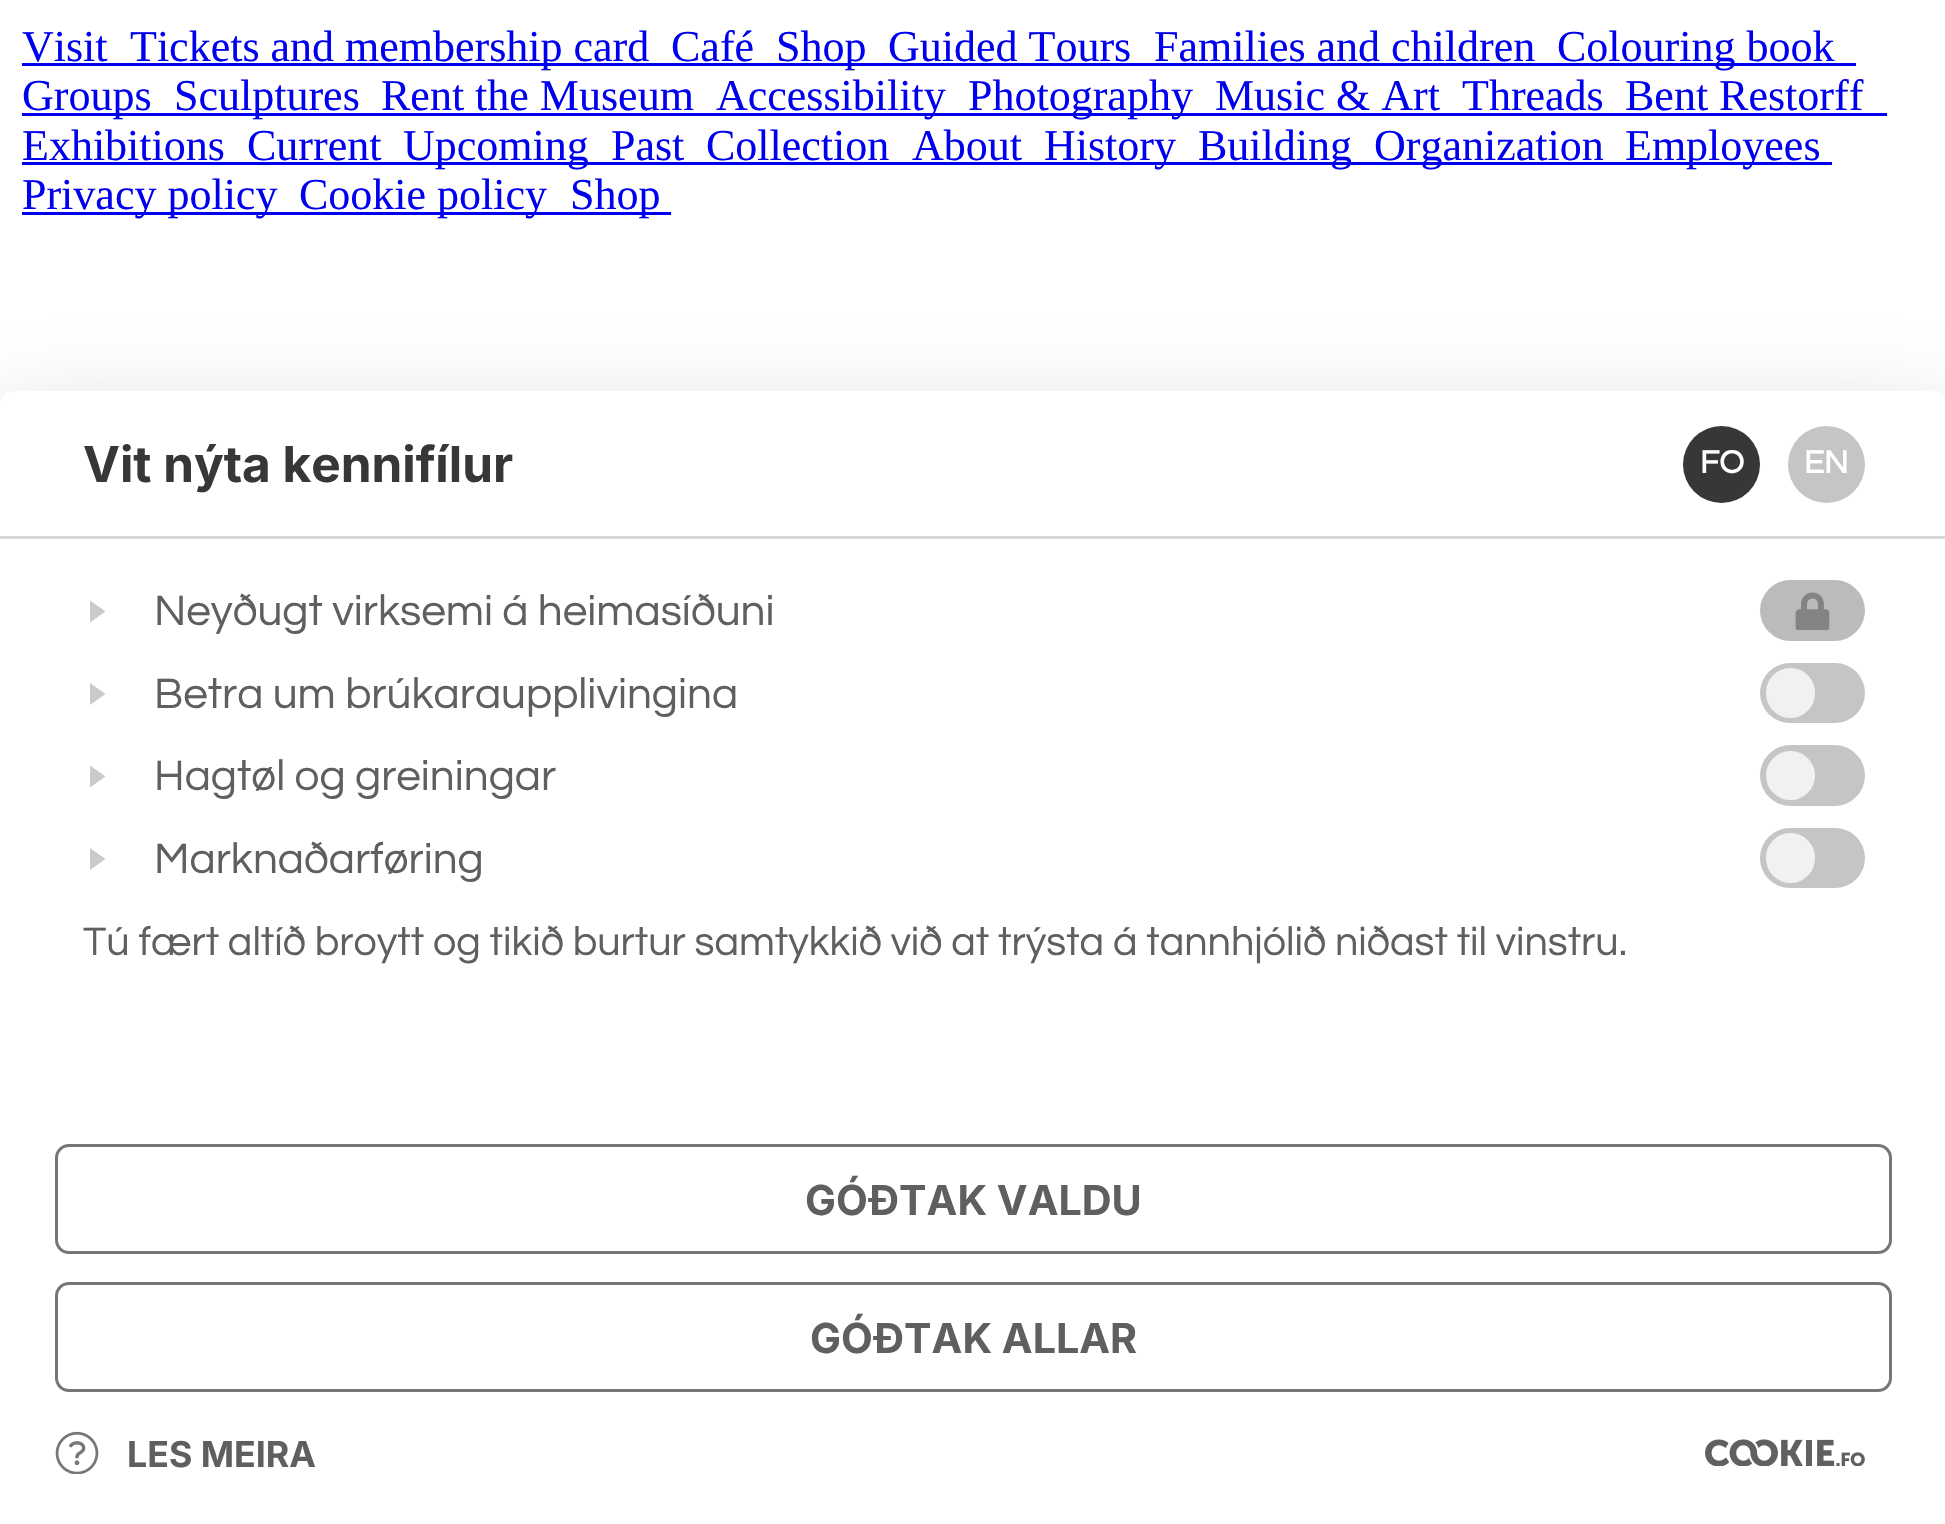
void draw(SkCanvas* canvas) {
    SkPaint paint;
    paint.setAntiAlias(true);
    canvas->clear(0xFFFFFFFF);
    SkFont font1(fontMgr->matchFamilyStyle("Liberation Serif", SkFontStyle::Normal()), 44);
    font1.setSubpixel(true);
    paint.setColor(0xFF0000EE);
    canvas->drawString("Visit", 22, 61, font1, paint);
    canvas->drawRect(SkRect::MakeXYWH(22, 63, 1834, 3), paint);
    canvas->drawString("Tickets and membership card", 130, 61, font1, paint);
    canvas->drawString("Café", 671, 61, font1, paint);
    canvas->drawString("Shop", 776, 61, font1, paint);
    canvas->drawString("Guided Tours", 888, 61, font1, paint);
    canvas->drawString("Families and children", 1154, 61, font1, paint);
    canvas->drawString("Colouring book", 1557, 61, font1, paint);
    canvas->drawRect(SkRect::MakeXYWH(22, 113, 1865, 3), paint);
    canvas->drawString("Groups", 22, 110, font1, paint);
    canvas->drawString("Sculptures", 174, 110, font1, paint);
    canvas->drawString("Rent the Museum", 381, 110, font1, paint);
    canvas->drawString("Accessibility", 716, 110, font1, paint);
    canvas->drawString("Photography", 968, 110, font1, paint);
    canvas->drawString("Music & Art", 1215, 110, font1, paint);
    canvas->drawString("Threads", 1462, 110, font1, paint);
    canvas->drawString("Bent Restorff", 1625, 110, font1, paint);
    canvas->drawString("Exhibitions", 22, 160, font1, paint);
    canvas->drawRect(SkRect::MakeXYWH(22, 162, 1810, 3), paint);
    canvas->drawString("Current", 247, 160, font1, paint);
    canvas->drawString("Upcoming", 403, 160, font1, paint);
    canvas->drawString("Past", 611, 160, font1, paint);
    canvas->drawString("Collection", 706, 160, font1, paint);
    canvas->drawString("About", 912, 160, font1, paint);
    canvas->drawString("History", 1044, 160, font1, paint);
    canvas->drawString("Building", 1198, 160, font1, paint);
    canvas->drawString("Organization", 1374, 160, font1, paint);
    canvas->drawString("Employees", 1625, 160, font1, paint);
    canvas->drawRect(SkRect::MakeXYWH(22, 212, 649, 3), paint);
    canvas->drawString("Privacy policy", 22, 209, font1, paint);
    canvas->drawString("Cookie policy", 299, 209, font1, paint);
    canvas->drawString("Shop", 570, 209, font1, paint);
    paint.setColor(0x4D010101);
    paint.setMaskFilter(SkMaskFilter::MakeBlur(kNormal_SkBlurStyle, 52));
    canvas->drawRoundRect(SkRect::MakeXYWH(0, 443, 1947, 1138), 14, 14, paint);
    paint.setMaskFilter(nullptr);
    paint.setColor(0xFFFFFFFF);
    canvas->drawPath(SkPathBuilder().moveTo(14, 391).lineTo(1933, 391).cubicTo(1940.5f, 391, 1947, 397.5f, 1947, 405).lineTo(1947, 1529).lineTo(0, 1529).lineTo(0, 405).cubicTo(0, 397.5f, 6.5f, 391, 14, 391).close().detach(), paint);
    paint.setColor(0xFFD9D9D9);
    canvas->drawRect(SkRect::MakeXYWH(0, 536, 1945, 3), paint);
    SkFont font2(fontMgr->matchFamilyStyle("Inter", SkFontStyle::Bold()), 49.5f);
    font2.setSubpixel(true);
    paint.setColor(0xFF373737);
    canvas->drawString("Vit nýta kennifílur", 83, 482, font2, paint);
    canvas->drawCircle(1721.5f, 464.5f, 38.5f, paint);
    SkFont font3(fontMgr->matchFamilyStyle("Questrial", SkFontStyle::Bold()), 33);
    font3.setSubpixel(true);
    paint.setColor(0xFFFFFFFF);
    canvas->drawString("FO", 1700, 473, font3, paint);
    paint.setColor(0xFFC6C5C5);
    canvas->drawCircle(1826.5f, 464.5f, 38.5f, paint);
    paint.setColor(0xFFFFFFFF);
    canvas->drawString("EN", 1804, 473, font3, paint);
    paint.setColor(0xFFCACACA);
    canvas->drawPath(SkPathBuilder().moveTo(90, 600.5f).lineTo(105.5f, 611.5f).lineTo(90, 622.5f).close().detach(), paint);
    SkFont font4(fontMgr->matchFamilyStyle("Questrial", SkFontStyle::Normal()), 44);
    font4.setSubpixel(true);
    paint.setColor(0xFF5F5F5F);
    canvas->drawString("Neyðugt virksemi á heimasíðuni", 154, 625, font4, paint);
    paint.setColor(0xFFBBBBBB);
    canvas->drawRoundRect(SkRect::MakeXYWH(1760, 580, 105, 61), 30.5f, 30.5f, paint);
    canvas->drawImageRect(SkImages::DeferredFromEncodedData(SkData::MakeFromFileName("img1.png")), SkRect::MakeXYWH(1795, 592, 35, 38), SkSamplingOptions());
    paint.setColor(0xFFCACACA);
    canvas->drawPath(SkPathBuilder().moveTo(90, 683).lineTo(105.5f, 694).lineTo(90, 705).close().detach(), paint);
    paint.setColor(0xFF5F5F5F);
    canvas->drawString("Betra um brúkaraupplivingina", 154, 708, font4, paint);
    paint.setColor(0xFFC6C5C5);
    canvas->drawRoundRect(SkRect::MakeXYWH(1760, 663, 105, 60), 30, 30, paint);
    paint.setColor(0xFFF1F1F1);
    canvas->drawRoundRect(SkRect::MakeXYWH(1766, 668, 49, 50), 24.5f, 24.5f, paint);
    paint.setColor(0xFFCACACA);
    canvas->drawPath(SkPathBuilder().moveTo(90, 765.5f).lineTo(105.5f, 776.5f).lineTo(90, 787.5f).close().detach(), paint);
    paint.setColor(0xFF5F5F5F);
    canvas->drawString("Hagtøl og greiningar", 154, 790, font4, paint);
    paint.setColor(0xFFC6C5C5);
    canvas->drawRoundRect(SkRect::MakeXYWH(1760, 745, 105, 61), 30.5f, 30.5f, paint);
    paint.setColor(0xFFF1F1F1);
    canvas->drawCircle(1790.5f, 775.5f, 24.5f, paint);
    paint.setColor(0xFFCACACA);
    canvas->drawPath(SkPathBuilder().moveTo(90, 848).lineTo(105.5f, 859).lineTo(90, 870).close().detach(), paint);
    paint.setColor(0xFF5F5F5F);
    canvas->drawString("Marknaðarføring", 154, 873, font4, paint);
    paint.setColor(0xFFC6C5C5);
    canvas->drawRoundRect(SkRect::MakeXYWH(1760, 828, 105, 60), 30, 30, paint);
    paint.setColor(0xFFF1F1F1);
    canvas->drawRoundRect(SkRect::MakeXYWH(1766, 833, 49, 50), 24.5f, 24.5f, paint);
    SkFont font5(fontMgr->matchFamilyStyle("Questrial", SkFontStyle::Normal()), 41.25f);
    font5.setSubpixel(true);
    paint.setColor(0xFF5F5F5F);
    canvas->drawString("Tú fært altíð broytt og tikið burtur samtykkið við at trýsta á tannhjólið niðast til vinstru.", 83, 955, font5, paint);
    paint.setStyle(SkPaint::kStroke_Style);
    paint.setStrokeWidth(3);
    paint.setColor(0xFF767676);
    canvas->drawRoundRect(SkRect::MakeXYWH(56.5f, 1145.5f, 1834, 107), 12.5f, 12.5f, paint);
    SkFont font6(fontMgr->matchFamilyStyle("Inter", SkFontStyle::Bold()), 41.25f);
    font6.setSubpixel(true);
    paint.setStyle(SkPaint::kFill_Style);
    paint.setColor(0xFF5F5F5F);
    canvas->drawString("GÓÐTAK VALDU", 805, 1215, font6, paint);
    paint.setStyle(SkPaint::kStroke_Style);
    paint.setColor(0xFF767676);
    canvas->drawRoundRect(SkRect::MakeXYWH(56.5f, 1283.5f, 1834, 107), 12.5f, 12.5f, paint);
    paint.setStyle(SkPaint::kFill_Style);
    paint.setColor(0xFF5F5F5F);
    canvas->drawString("GÓÐTAK ALLAR", 810, 1353, font6, paint);
    canvas->drawImageRect(SkImages::DeferredFromEncodedData(SkData::MakeFromFileName("img2.png")), SkRect::MakeXYWH(55, 1431, 44, 43), SkSamplingOptions());
    SkFont font7(fontMgr->matchFamilyStyle("Inter", SkFontStyle::Bold()), 35.75f);
    font7.setSubpixel(true);
    canvas->drawString("LES MEIRA", 127, 1467, font7, paint);
    canvas->drawImageRect(SkImages::DeferredFromEncodedData(SkData::MakeFromFileName("img3.png")), SkRect::MakeXYWH(1705, 1439, 160, 27), SkSamplingOptions());
}
